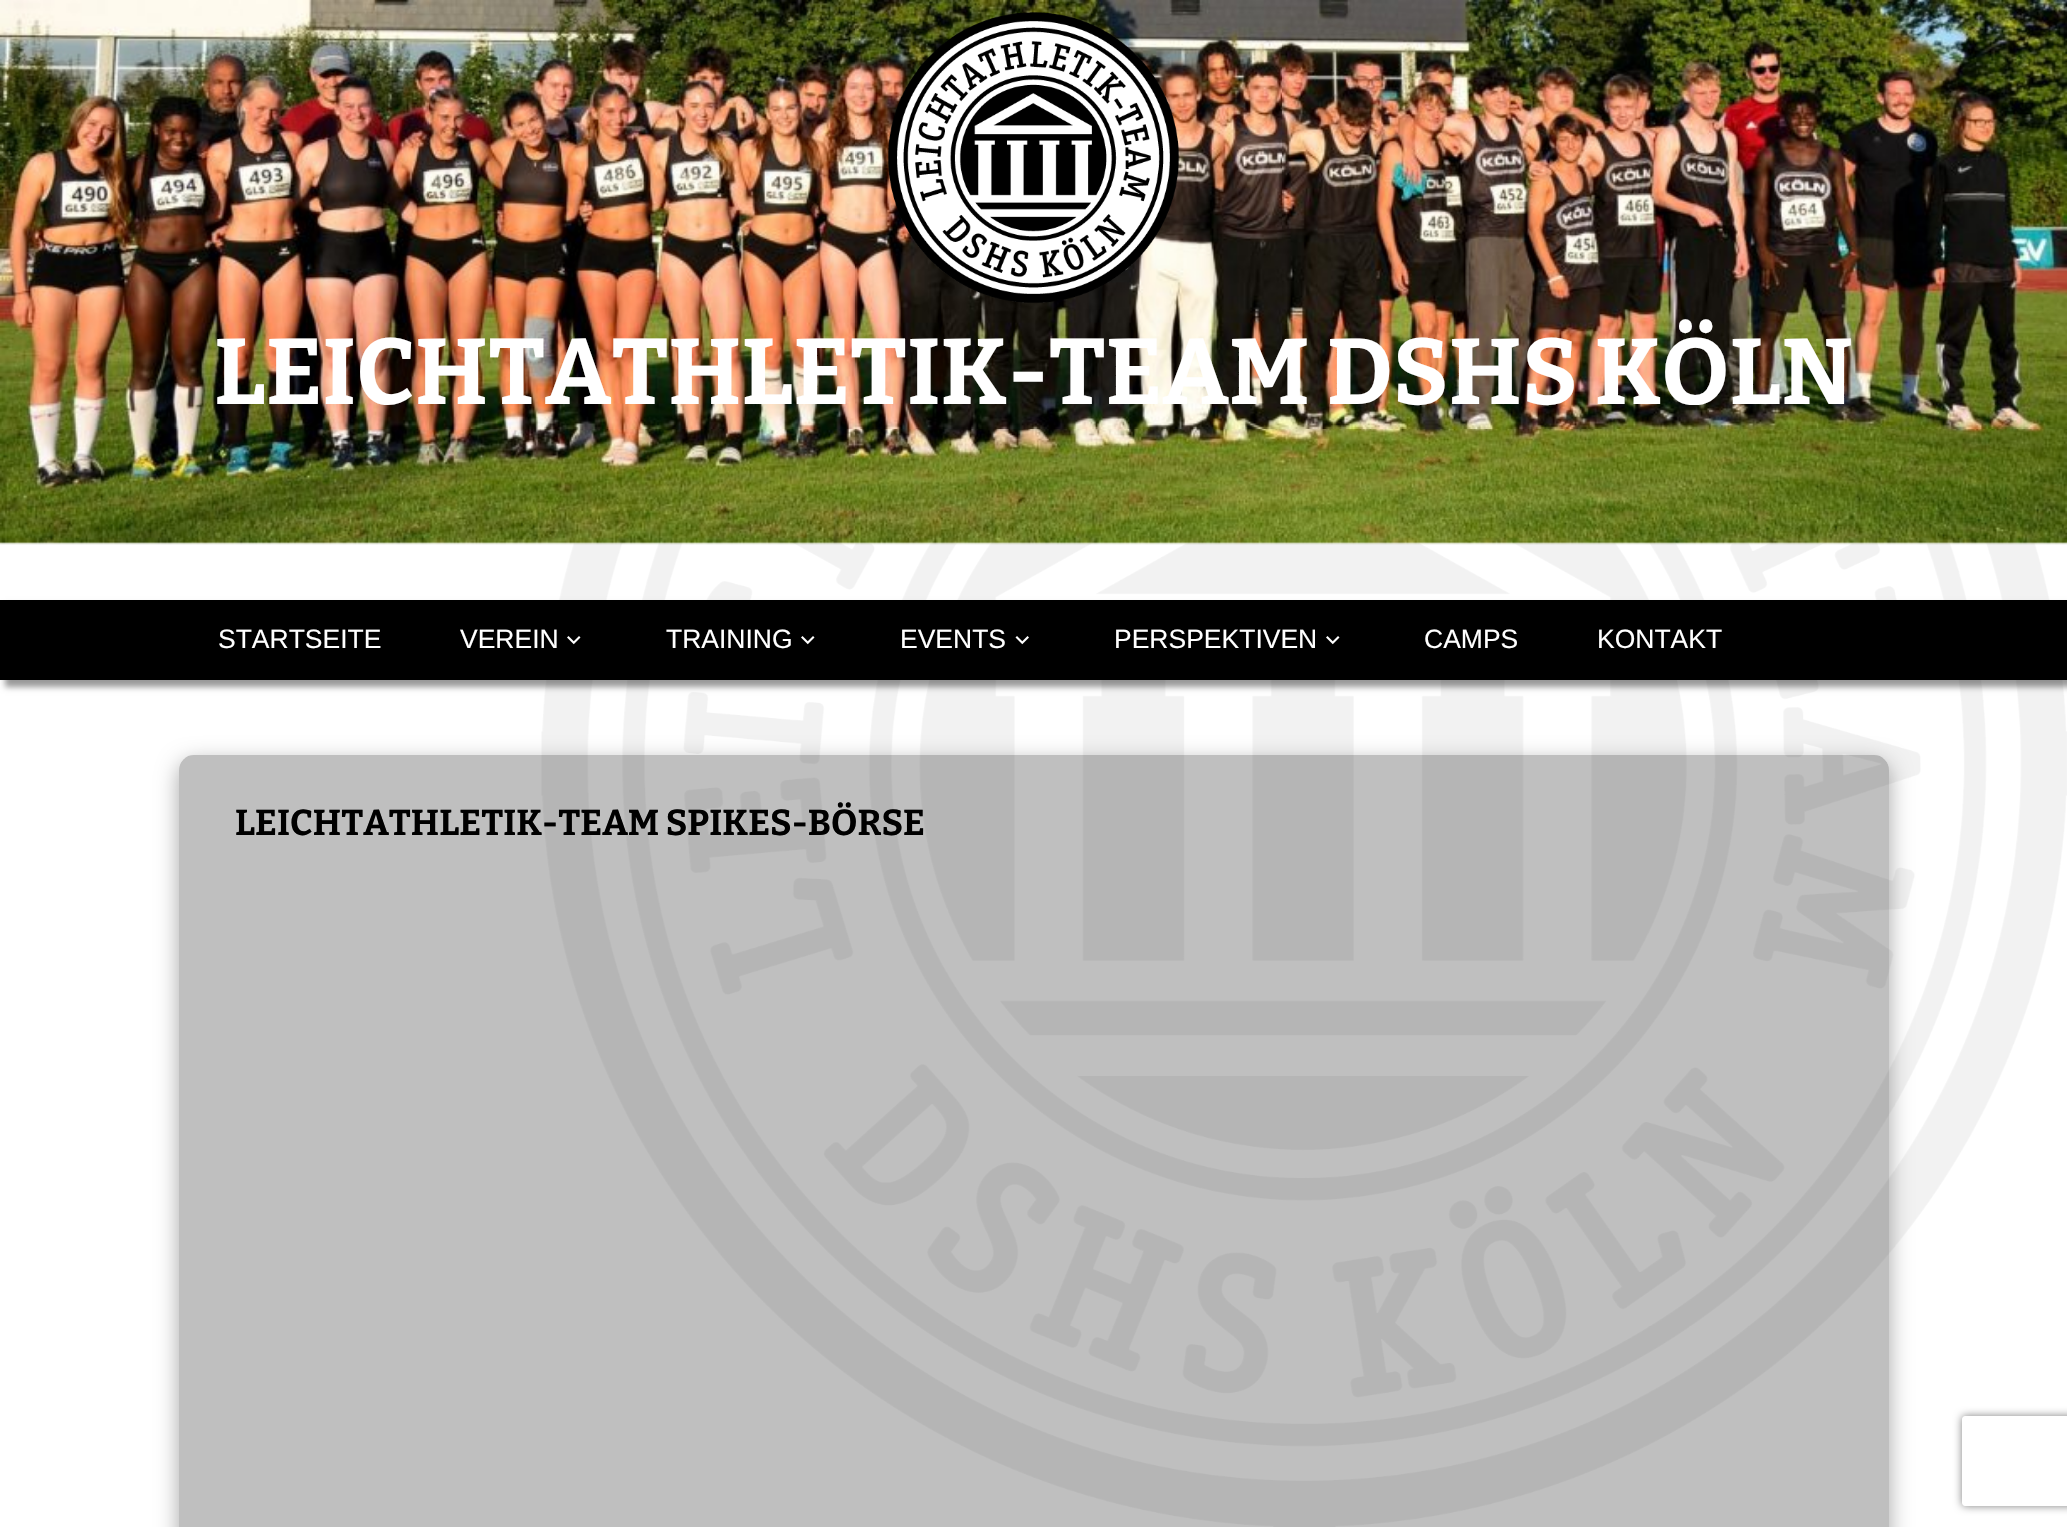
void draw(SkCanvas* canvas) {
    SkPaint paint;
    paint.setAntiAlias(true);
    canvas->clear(0xFFFFFFFF);
    canvas->drawImageRect(SkImages::DeferredFromEncodedData(SkData::MakeFromFileName("img1.png")), SkRect::MakeXYWH(541, 542, 1526, 985), SkSamplingOptions());
    canvas->drawImageRect(SkImages::DeferredFromEncodedData(SkData::MakeFromFileName("img2.png")), SkRect::MakeXYWH(0, 0, 2067, 545), SkSamplingOptions());
    canvas->drawImageRect(SkImages::DeferredFromEncodedData(SkData::MakeFromFileName("img3.png")), SkRect::MakeXYWH(888, 12, 292, 291), SkSamplingOptions());
    SkFont font1(fontMgr->matchFamilyStyle("Bitter", SkFontStyle::Bold()), 93);
    font1.setSubpixel(true);
    paint.setColor(0xFFFFFFFF);
    canvas->drawString("LEICHTATHLETIK-TEAM DSHS KÖLN", 214, 404, font1, paint);
    paint.setColor(0x66000000);
    paint.setMaskFilter(SkMaskFilter::MakeBlur(kNormal_SkBlurStyle, 3));
    canvas->drawRect(SkRect::MakeXYWH(5, 605, 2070, 82), paint);
    paint.setMaskFilter(nullptr);
    paint.setColor(0xFF000000);
    canvas->drawRect(SkRect::MakeXYWH(0, 600, 2067, 80), paint);
    SkFont font2(fontMgr->matchFamilyStyle("Liberation Sans", SkFontStyle::Normal()), 26.5f);
    font2.setSubpixel(true);
    paint.setColor(0xFFFFFFFF);
    canvas->drawString("STARTSEITE", 218, 648, font2, paint);
    canvas->drawString("VEREIN", 460, 648, font2, paint);
    canvas->drawImageRect(SkImages::DeferredFromEncodedData(SkData::MakeFromFileName("img4.png")), SkRect::MakeXYWH(567, 636, 14, 9), SkSamplingOptions());
    canvas->drawString("TRAINING", 666, 648, font2, paint);
    canvas->drawImageRect(SkImages::DeferredFromEncodedData(SkData::MakeFromFileName("img4.png")), SkRect::MakeXYWH(801, 636, 14, 9), SkSamplingOptions());
    canvas->drawString("EVENTS", 900, 648, font2, paint);
    canvas->drawImageRect(SkImages::DeferredFromEncodedData(SkData::MakeFromFileName("img5.png")), SkRect::MakeXYWH(1015, 636, 14, 9), SkSamplingOptions());
    canvas->drawString("PERSPEKTIVEN", 1114, 648, font2, paint);
    canvas->drawImageRect(SkImages::DeferredFromEncodedData(SkData::MakeFromFileName("img4.png")), SkRect::MakeXYWH(1326, 636, 14, 9), SkSamplingOptions());
    canvas->drawString("CAMPS", 1424, 648, font2, paint);
    canvas->drawString("KONTAKT", 1597, 648, font2, paint);
    canvas->save();
    canvas->clipPath(SkPathBuilder(SkPathFillType::kEvenOdd).moveTo(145, 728).lineTo(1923, 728).lineTo(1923, 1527).lineTo(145, 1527).close().moveTo(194, 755).lineTo(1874, 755).cubicTo(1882.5f, 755, 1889, 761.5f, 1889, 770).lineTo(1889, 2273).cubicTo(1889, 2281.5f, 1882.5f, 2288, 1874, 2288).lineTo(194, 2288).cubicTo(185.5f, 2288, 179, 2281.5f, 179, 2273).lineTo(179, 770).cubicTo(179, 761.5f, 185.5f, 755, 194, 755).close().detach(), true);
    paint.setColor(0x59000000);
    paint.setMaskFilter(SkMaskFilter::MakeBlur(kNormal_SkBlurStyle, 11));
    canvas->drawRoundRect(SkRect::MakeXYWH(179, 762, 1710, 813), 15, 15, paint);
    paint.setMaskFilter(nullptr);
    canvas->restore();
    paint.setColor(0x40000000);
    canvas->drawRoundRect(SkRect::MakeXYWH(179, 755, 1710, 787), 15, 15, paint);
    SkFont font3(fontMgr->matchFamilyStyle("Bitter", SkFontStyle::Bold()), 36);
    font3.setSubpixel(true);
    paint.setColor(0xFF000000);
    canvas->drawString("LEICHTATHLETIK-TEAM SPIKES-BÖRSE", 235, 835, font3, paint);
    canvas->save();
    canvas->clipPath(SkPathBuilder(SkPathFillType::kEvenOdd).moveTo(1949, 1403).lineTo(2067, 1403).lineTo(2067, 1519).lineTo(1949, 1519).close().moveTo(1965, 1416).lineTo(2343, 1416).cubicTo(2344.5f, 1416, 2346, 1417.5f, 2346, 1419).lineTo(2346, 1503).cubicTo(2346, 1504.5f, 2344.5f, 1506, 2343, 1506).lineTo(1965, 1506).cubicTo(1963.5f, 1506, 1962, 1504.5f, 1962, 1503).lineTo(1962, 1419).cubicTo(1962, 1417.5f, 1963.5f, 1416, 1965, 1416).close().detach(), true);
    paint.setColor(0xFF808080);
    paint.setMaskFilter(SkMaskFilter::MakeBlur(kNormal_SkBlurStyle, 4));
    canvas->drawRoundRect(SkRect::MakeXYWH(1962, 1416, 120, 90), 3, 3, paint);
    paint.setMaskFilter(nullptr);
    canvas->restore();
}
